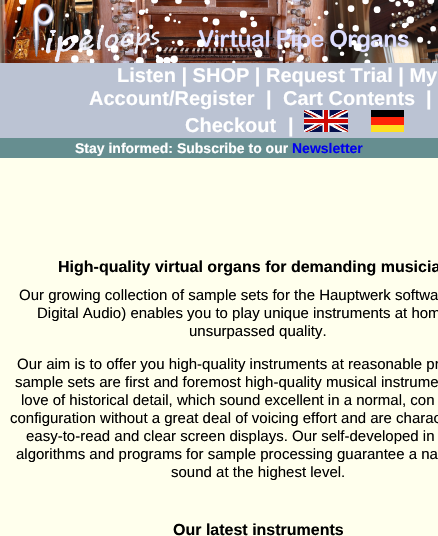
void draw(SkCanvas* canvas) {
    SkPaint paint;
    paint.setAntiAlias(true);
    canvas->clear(0xFFFFFFED);
    canvas->drawImageRect(SkImages::DeferredFromEncodedData(SkData::MakeFromFileName("img1.png")), SkRect::MakeXYWH(0, 0, 438, 63), SkSamplingOptions());
    canvas->drawImageRect(SkImages::DeferredFromEncodedData(SkData::MakeFromFileName("img2.png")), SkRect::MakeXYWH(12, 0, 424, 63), SkSamplingOptions());
    paint.setColor(0xFFBBC3D3);
    canvas->drawRect(SkRect::MakeXYWH(0, 63, 438, 75), paint);
    SkFont font1(fontMgr->matchFamilyStyle("Liberation Sans", SkFontStyle::Bold()), 20);
    font1.setSubpixel(true);
    paint.setColor(0xFFFFFFFF);
    canvas->drawString("Listen | SHOP | Request Trial | My", 117, 82, font1, paint);
    canvas->drawString("Account/Register", 89, 105, font1, paint);
    canvas->drawString("|", 266, 105, font1, paint);
    canvas->drawString("Cart Contents", 283, 105, font1, paint);
    canvas->drawString("|", 426, 105, font1, paint);
    canvas->drawString("Checkout", 185, 132, font1, paint);
    canvas->drawString("|", 288, 132, font1, paint);
    canvas->drawImageRect(SkImages::DeferredFromEncodedData(SkData::MakeFromFileName("img3.png")), SkRect::MakeXYWH(304, 110, 44, 22), SkSamplingOptions());
    canvas->drawImageRect(SkImages::DeferredFromEncodedData(SkData::MakeFromFileName("img4.png")), SkRect::MakeXYWH(371, 110, 33, 22), SkSamplingOptions());
    paint.setColor(0xFF668E90);
    canvas->drawRect(SkRect::MakeXYWH(0, 138, 438, 20), paint);
    SkFont font2(fontMgr->matchFamilyStyle("Liberation Sans", SkFontStyle::Bold()), 14);
    font2.setSubpixel(true);
    paint.setColor(0xFFFFFFFF);
    canvas->drawString("Stay informed: Subscribe to our", 75, 153, font2, paint);
    paint.setColor(0xFF0000EE);
    canvas->drawString("Newsletter", 292, 153, font2, paint);
    SkFont font3(fontMgr->matchFamilyStyle("Liberation Sans", SkFontStyle::Bold()), 16);
    font3.setSubpixel(true);
    paint.setColor(0xFF000000);
    canvas->drawString("High-quality virtual organs for demanding musicia", 58, 272, font3, paint);
    SkFont font4(fontMgr->matchFamilyStyle("Liberation Sans", SkFontStyle::Normal()), 15);
    font4.setSubpixel(true);
    canvas->drawString("Our growing collection of sample sets for the Hauptwerk softwa", 19, 300, font4, paint);
    canvas->drawString("Digital Audio) enables you to play unique instruments at hom", 37, 318, font4, paint);
    canvas->drawString("unsurpassed quality.", 189, 336, font4, paint);
    canvas->drawString("Our aim is to offer you high-quality instruments at reasonable pr", 17, 369, font4, paint);
    canvas->drawString("sample sets are first and foremost high-quality musical instrume", 15, 387, font4, paint);
    canvas->drawString("love of historical detail, which sound excellent in a normal, con", 21, 405, font4, paint);
    canvas->drawString("configuration without a great deal of voicing effort and are charac", 10, 423, font4, paint);
    canvas->drawString("easy-to-read and clear screen displays. Our self-developed in", 26, 441, font4, paint);
    canvas->drawString("algorithms and programs for sample processing guarantee a na", 16, 459, font4, paint);
    canvas->drawString("sound at the highest level.", 171, 477, font4, paint);
    canvas->drawString("Our latest instruments", 173, 535, font3, paint);
}
